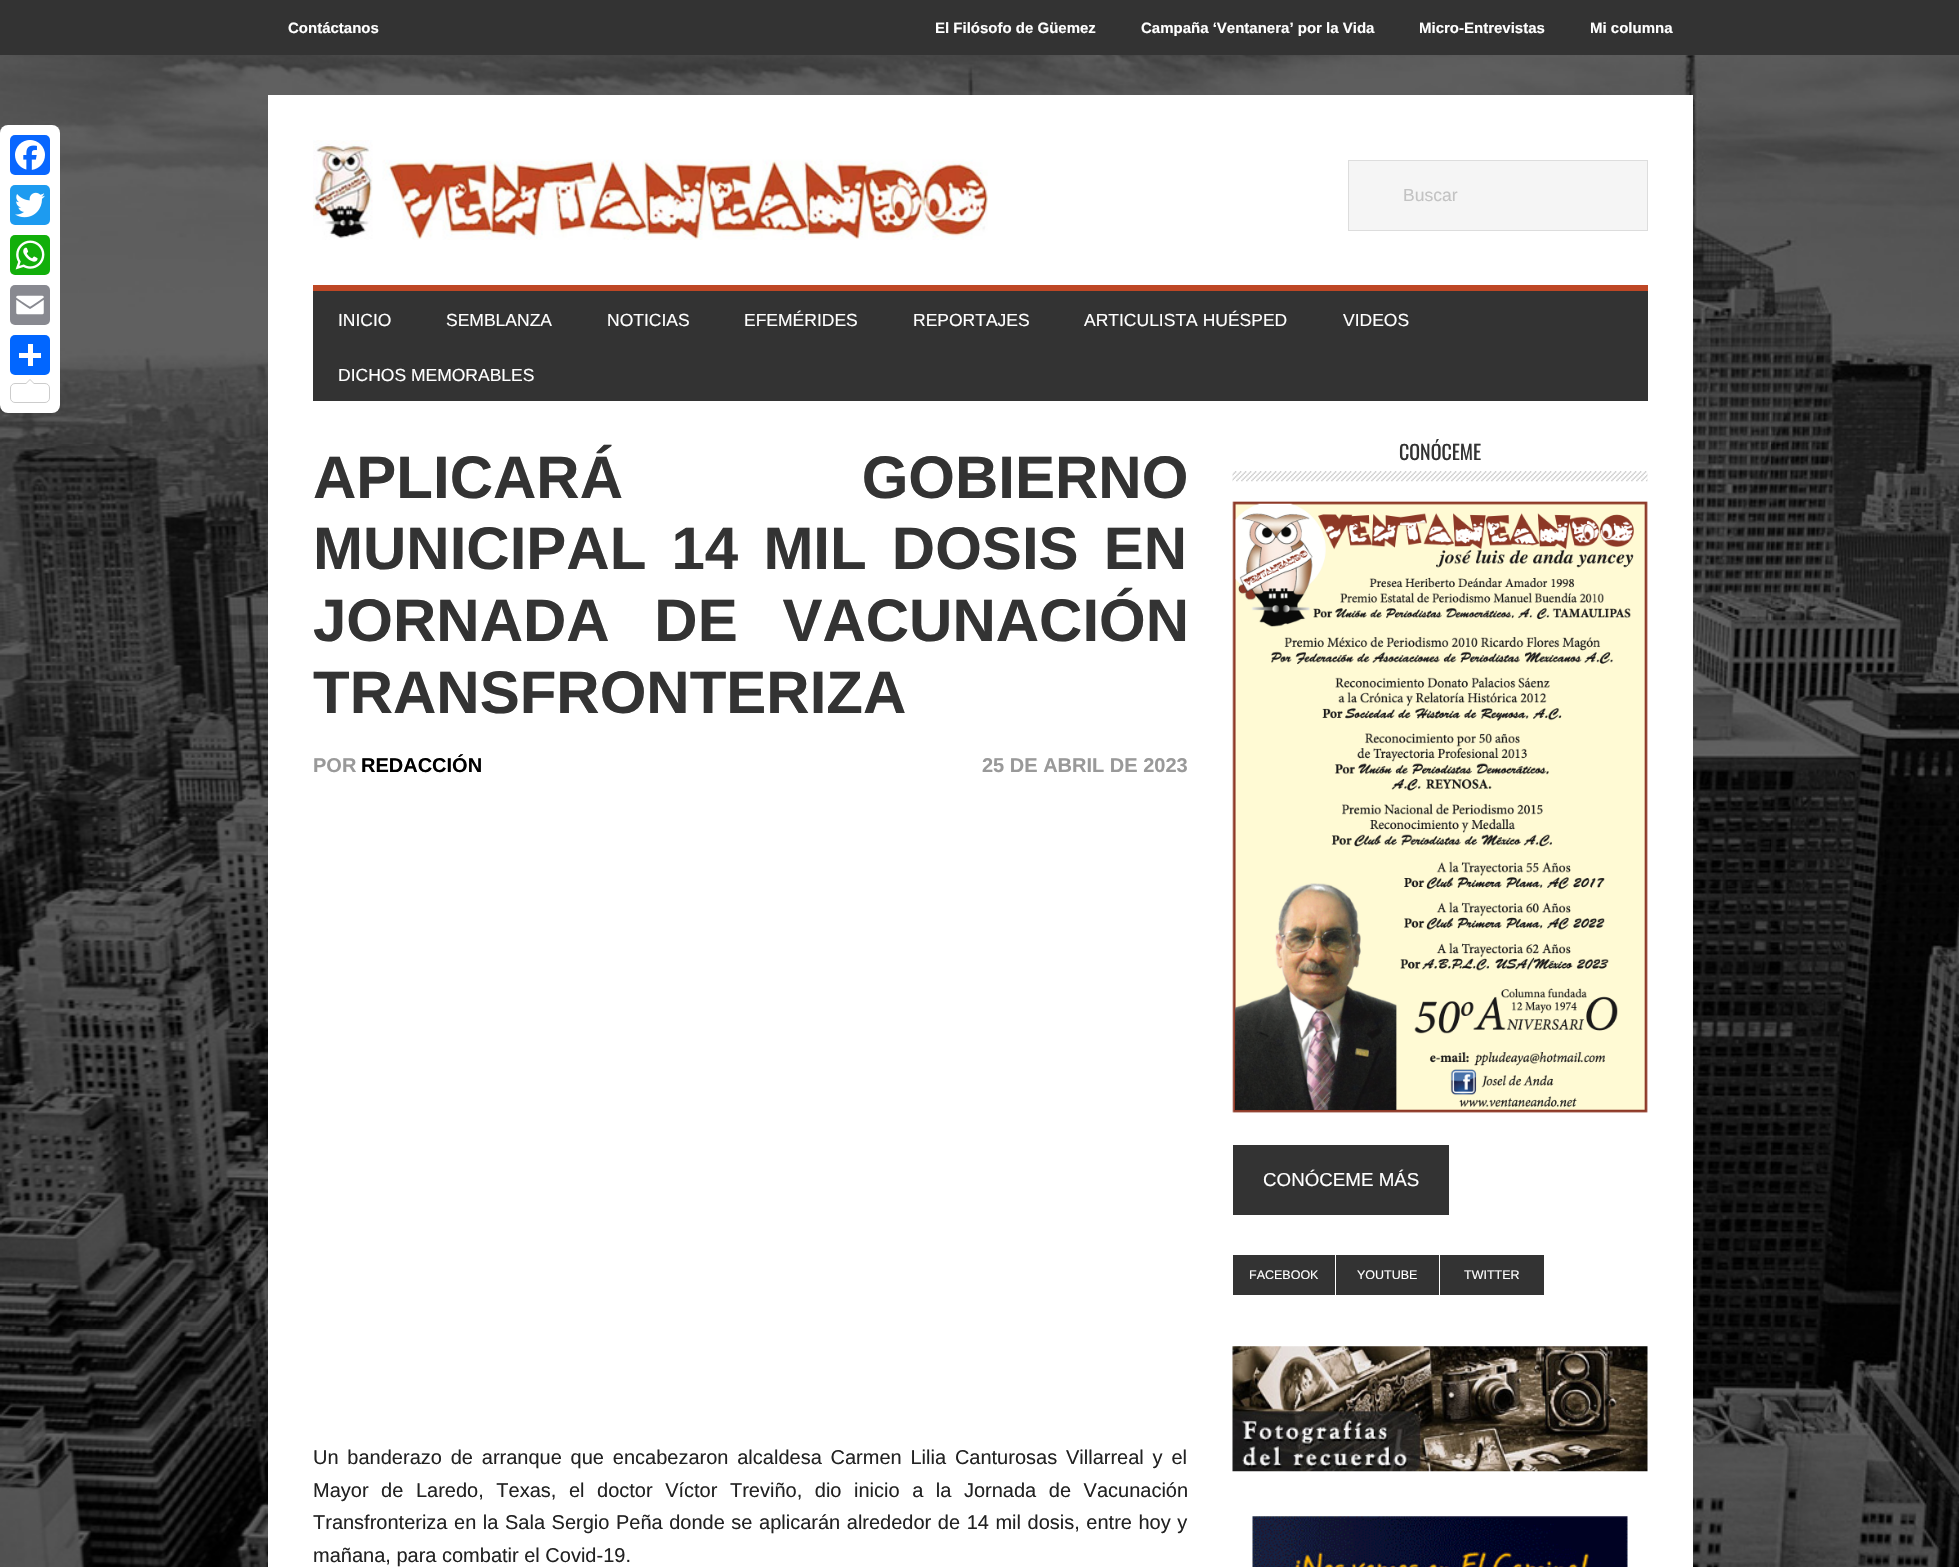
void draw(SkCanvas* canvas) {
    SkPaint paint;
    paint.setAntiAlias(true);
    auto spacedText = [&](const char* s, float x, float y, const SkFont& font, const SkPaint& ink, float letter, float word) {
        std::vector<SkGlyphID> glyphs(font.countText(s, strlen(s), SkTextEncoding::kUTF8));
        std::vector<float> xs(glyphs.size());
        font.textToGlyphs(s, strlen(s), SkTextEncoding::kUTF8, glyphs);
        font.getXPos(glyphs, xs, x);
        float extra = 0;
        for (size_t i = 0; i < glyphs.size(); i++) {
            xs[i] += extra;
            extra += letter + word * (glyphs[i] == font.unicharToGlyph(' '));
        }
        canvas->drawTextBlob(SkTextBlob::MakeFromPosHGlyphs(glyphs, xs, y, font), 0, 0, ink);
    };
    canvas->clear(0xFFFFFFFF);
    paint.setColor(0xFF333333);
    canvas->drawRect(SkRect::MakeXYWH(0, 0, 1959, 55), paint);
    SkFont font1(fontMgr->matchFamilyStyle("Liberation Sans", SkFontStyle::Bold()), 15);
    font1.setSubpixel(true);
    paint.setColor(0xFFFFFFFF);
    canvas->drawString("Contáctanos", 288, 33, font1, paint);
    canvas->drawString("El Filósofo de Güemez", 935, 33, font1, paint);
    canvas->drawString("Campaña ‘Ventanera’ por la Vida", 1141, 33, font1, paint);
    canvas->drawString("Micro-Entrevistas", 1419, 33, font1, paint);
    canvas->drawString("Mi columna", 1590, 33, font1, paint);
    canvas->drawImageRect(SkImages::DeferredFromEncodedData(SkData::MakeFromFileName("img6.png")), SkRect::MakeXYWH(0, 55, 1959, 1512), SkSamplingOptions());
    canvas->drawRect(SkRect::MakeXYWH(268, 95, 1425, 1472), paint);
    canvas->drawImageRect(SkImages::DeferredFromEncodedData(SkData::MakeFromFileName("img1.png")), SkRect::MakeXYWH(313, 140, 675, 100), SkSamplingOptions());
    paint.setColor(0xFFF5F5F5);
    canvas->drawRect(SkRect::MakeXYWH(1348.5f, 160.5f, 299, 70), paint);
    paint.setStyle(SkPaint::kStroke_Style);
    paint.setStrokeWidth(1);
    paint.setColor(0xFFDDDDDD);
    canvas->drawRect(SkRect::MakeXYWH(1348.5f, 160.5f, 299, 70), paint);
    SkFont font2(fontMgr->matchFamilyStyle("Liberation Sans", SkFontStyle::Normal()), 17.5f);
    font2.setSubpixel(true);
    paint.setStyle(SkPaint::kFill_Style);
    paint.setColor(0xFFC3C3C3);
    canvas->drawString("Buscar", 1403, 201, font2, paint);
    paint.setColor(0xFF333333);
    canvas->drawRect(SkRect::MakeXYWH(313, 291, 1335, 110), paint);
    paint.setColor(0xFFBE4725);
    canvas->drawRect(SkRect::MakeXYWH(313, 285, 1335, 6), paint);
    paint.setColor(0xFFFFFFFF);
    canvas->drawString("INICIO", 338, 326, font2, paint);
    canvas->drawString("SEMBLANZA", 446, 326, font2, paint);
    canvas->drawString("NOTICIAS", 607, 326, font2, paint);
    canvas->drawString("EFEMÉRIDES", 744, 326, font2, paint);
    canvas->drawString("REPORTAJES", 913, 326, font2, paint);
    canvas->drawString("ARTICULISTA HUÉSPED", 1084, 326, font2, paint);
    canvas->drawString("VIDEOS", 1343, 326, font2, paint);
    canvas->drawString("DICHOS MEMORABLES", 338, 381, font2, paint);
    SkFont font3(fontMgr->matchFamilyStyle("Liberation Sans", SkFontStyle::Bold()), 60);
    font3.setSubpixel(true);
    paint.setColor(0xFF333333);
    spacedText("APLICARÁ GOBIERNO", 313, 498, font3, paint, 0, 222);
    spacedText("MUNICIPAL 14 MIL DOSIS EN", 313, 569, font3, paint, 0, 8.5f);
    spacedText("JORNADA DE VACUNACIÓN", 313, 641, font3, paint, 0, 28);
    canvas->drawString("TRANSFRONTERIZA", 313, 713, font3, paint);
    SkFont font4(fontMgr->matchFamilyStyle("Liberation Sans", SkFontStyle::Bold()), 20);
    font4.setSubpixel(true);
    paint.setColor(0xFF999999);
    canvas->drawString("POR", 313, 772, font4, paint);
    paint.setColor(0xFF000000);
    canvas->drawString("REDACCIÓN", 361, 772, font4, paint);
    paint.setColor(0xFF999999);
    canvas->drawString("25 DE ABRIL DE 2023", 982, 772, font4, paint);
    SkFont font5(fontMgr->matchFamilyStyle("Liberation Sans", SkFontStyle::Normal()), 20);
    font5.setSubpixel(true);
    paint.setColor(0xFF222222);
    spacedText("Un banderazo de arranque que encabezaron alcaldesa Carmen Lilia Canturosas Villarreal y el", 313, 1464, font5, paint, 0, 3.25f);
    spacedText("Mayor de Laredo, Texas, el doctor Víctor Treviño, dio inicio a la Jornada de Vacunación", 313, 1497, font5, paint, 0, 7);
    spacedText("Transfronteriza en la Sala Sergio Peña donde se aplicarán alrededor de 14 mil dosis, entre hoy y", 313, 1529, font5, paint, 0, 1);
    canvas->drawString("mañana, para combatir el Covid-19.", 313, 1562, font5, paint);
    canvas->drawImageRect(SkImages::DeferredFromEncodedData(SkData::MakeFromFileName("img2.png")), SkRect::MakeXYWH(1232, 471, 416, 11), SkSamplingOptions());
    SkFont font6(fontMgr->matchFamilyStyle("Oswald", SkFontStyle::Normal()), 20);
    font6.setSubpixel(true);
    paint.setColor(0xFF333333);
    canvas->drawString("CONÓCEME", 1399, 460, font6, paint);
    canvas->drawImageRect(SkImages::DeferredFromEncodedData(SkData::MakeFromFileName("img3.png")), SkRect::MakeXYWH(1232, 501, 416, 612), SkSamplingOptions());
    canvas->drawRect(SkRect::MakeXYWH(1233, 1145, 216, 70), paint);
    SkFont font7(fontMgr->matchFamilyStyle("Liberation Sans", SkFontStyle::Normal()), 18.75f);
    font7.setSubpixel(true);
    paint.setColor(0xFFFFFFFF);
    canvas->drawString("CONÓCEME MÁS", 1263, 1186, font7, paint);
    paint.setColor(0xFF333333);
    canvas->drawRect(SkRect::MakeXYWH(1233, 1255, 102, 40), paint);
    SkFont font8(fontMgr->matchFamilyStyle("Liberation Sans", SkFontStyle::Normal()), 12.5f);
    font8.setSubpixel(true);
    paint.setColor(0xFFFFFFFF);
    canvas->drawString("FACEBOOK", 1249, 1279, font8, paint);
    paint.setColor(0xFF333333);
    canvas->drawRect(SkRect::MakeXYWH(1336, 1255, 103, 40), paint);
    paint.setColor(0xFFFFFFFF);
    canvas->drawString("YOUTUBE", 1357, 1279, font8, paint);
    paint.setColor(0xFF333333);
    canvas->drawRect(SkRect::MakeXYWH(1440, 1255, 104, 40), paint);
    paint.setColor(0xFFFFFFFF);
    canvas->drawString("TWITTER", 1464, 1279, font8, paint);
    canvas->drawImageRect(SkImages::DeferredFromEncodedData(SkData::MakeFromFileName("img4.png")), SkRect::MakeXYWH(1232, 1346, 416, 126), SkSamplingOptions());
    canvas->drawImageRect(SkImages::DeferredFromEncodedData(SkData::MakeFromFileName("img5.png")), SkRect::MakeXYWH(1252, 1516, 376, 51), SkSamplingOptions());
    canvas->drawRoundRect(SkRect::MakeXYWH(0, 125, 60, 288), 8, 8, paint);
    paint.setColor(0xFF0866FF);
    canvas->drawRoundRect(SkRect::MakeXYWH(10, 135, 40, 40), 5, 5, paint);
    canvas->drawImageRect(SkImages::DeferredFromEncodedData(SkData::MakeFromFileName("img7.png")), SkRect::MakeXYWH(15, 140, 30, 30), SkSamplingOptions());
    paint.setColor(0xFF1D9BF0);
    canvas->drawRoundRect(SkRect::MakeXYWH(10, 185, 40, 40), 5, 5, paint);
    canvas->drawImageRect(SkImages::DeferredFromEncodedData(SkData::MakeFromFileName("img8.png")), SkRect::MakeXYWH(15, 192, 30, 26), SkSamplingOptions());
    paint.setColor(0xFF12AF0A);
    canvas->drawRoundRect(SkRect::MakeXYWH(10, 235, 40, 40), 5, 5, paint);
    canvas->drawImageRect(SkImages::DeferredFromEncodedData(SkData::MakeFromFileName("img9.png")), SkRect::MakeXYWH(15, 240, 30, 30), SkSamplingOptions());
    paint.setColor(0xFF888990);
    canvas->drawRoundRect(SkRect::MakeXYWH(10, 285, 40, 40), 5, 5, paint);
    canvas->drawImageRect(SkImages::DeferredFromEncodedData(SkData::MakeFromFileName("img10.png")), SkRect::MakeXYWH(16, 295, 28, 20), SkSamplingOptions());
    paint.setColor(0xFF0166FF);
    canvas->drawRoundRect(SkRect::MakeXYWH(10, 335, 40, 40), 5, 5, paint);
    paint.setColor(0xFFFFFFFF);
    canvas->drawRect(SkRect::MakeXYWH(28, 344, 5, 22), paint);
    canvas->drawRect(SkRect::MakeXYWH(19, 353, 22, 5), paint);
    paint.setStyle(SkPaint::kStroke_Style);
    paint.setColor(0xFFCCCCCC);
    canvas->drawRoundRect(SkRect::MakeXYWH(10.5f, 383.5f, 39, 19), 4.5f, 4.5f, paint);
    paint.setStyle(SkPaint::kFill_Style);
    canvas->drawPath(SkPathBuilder().moveTo(35, 384).lineTo(25, 384).lineTo(30, 379).close().detach(), paint);
    paint.setColor(0xFFFFFFFF);
    canvas->drawPath(SkPathBuilder().moveTo(35, 385).lineTo(25, 385).lineTo(30, 380).close().detach(), paint);
}
